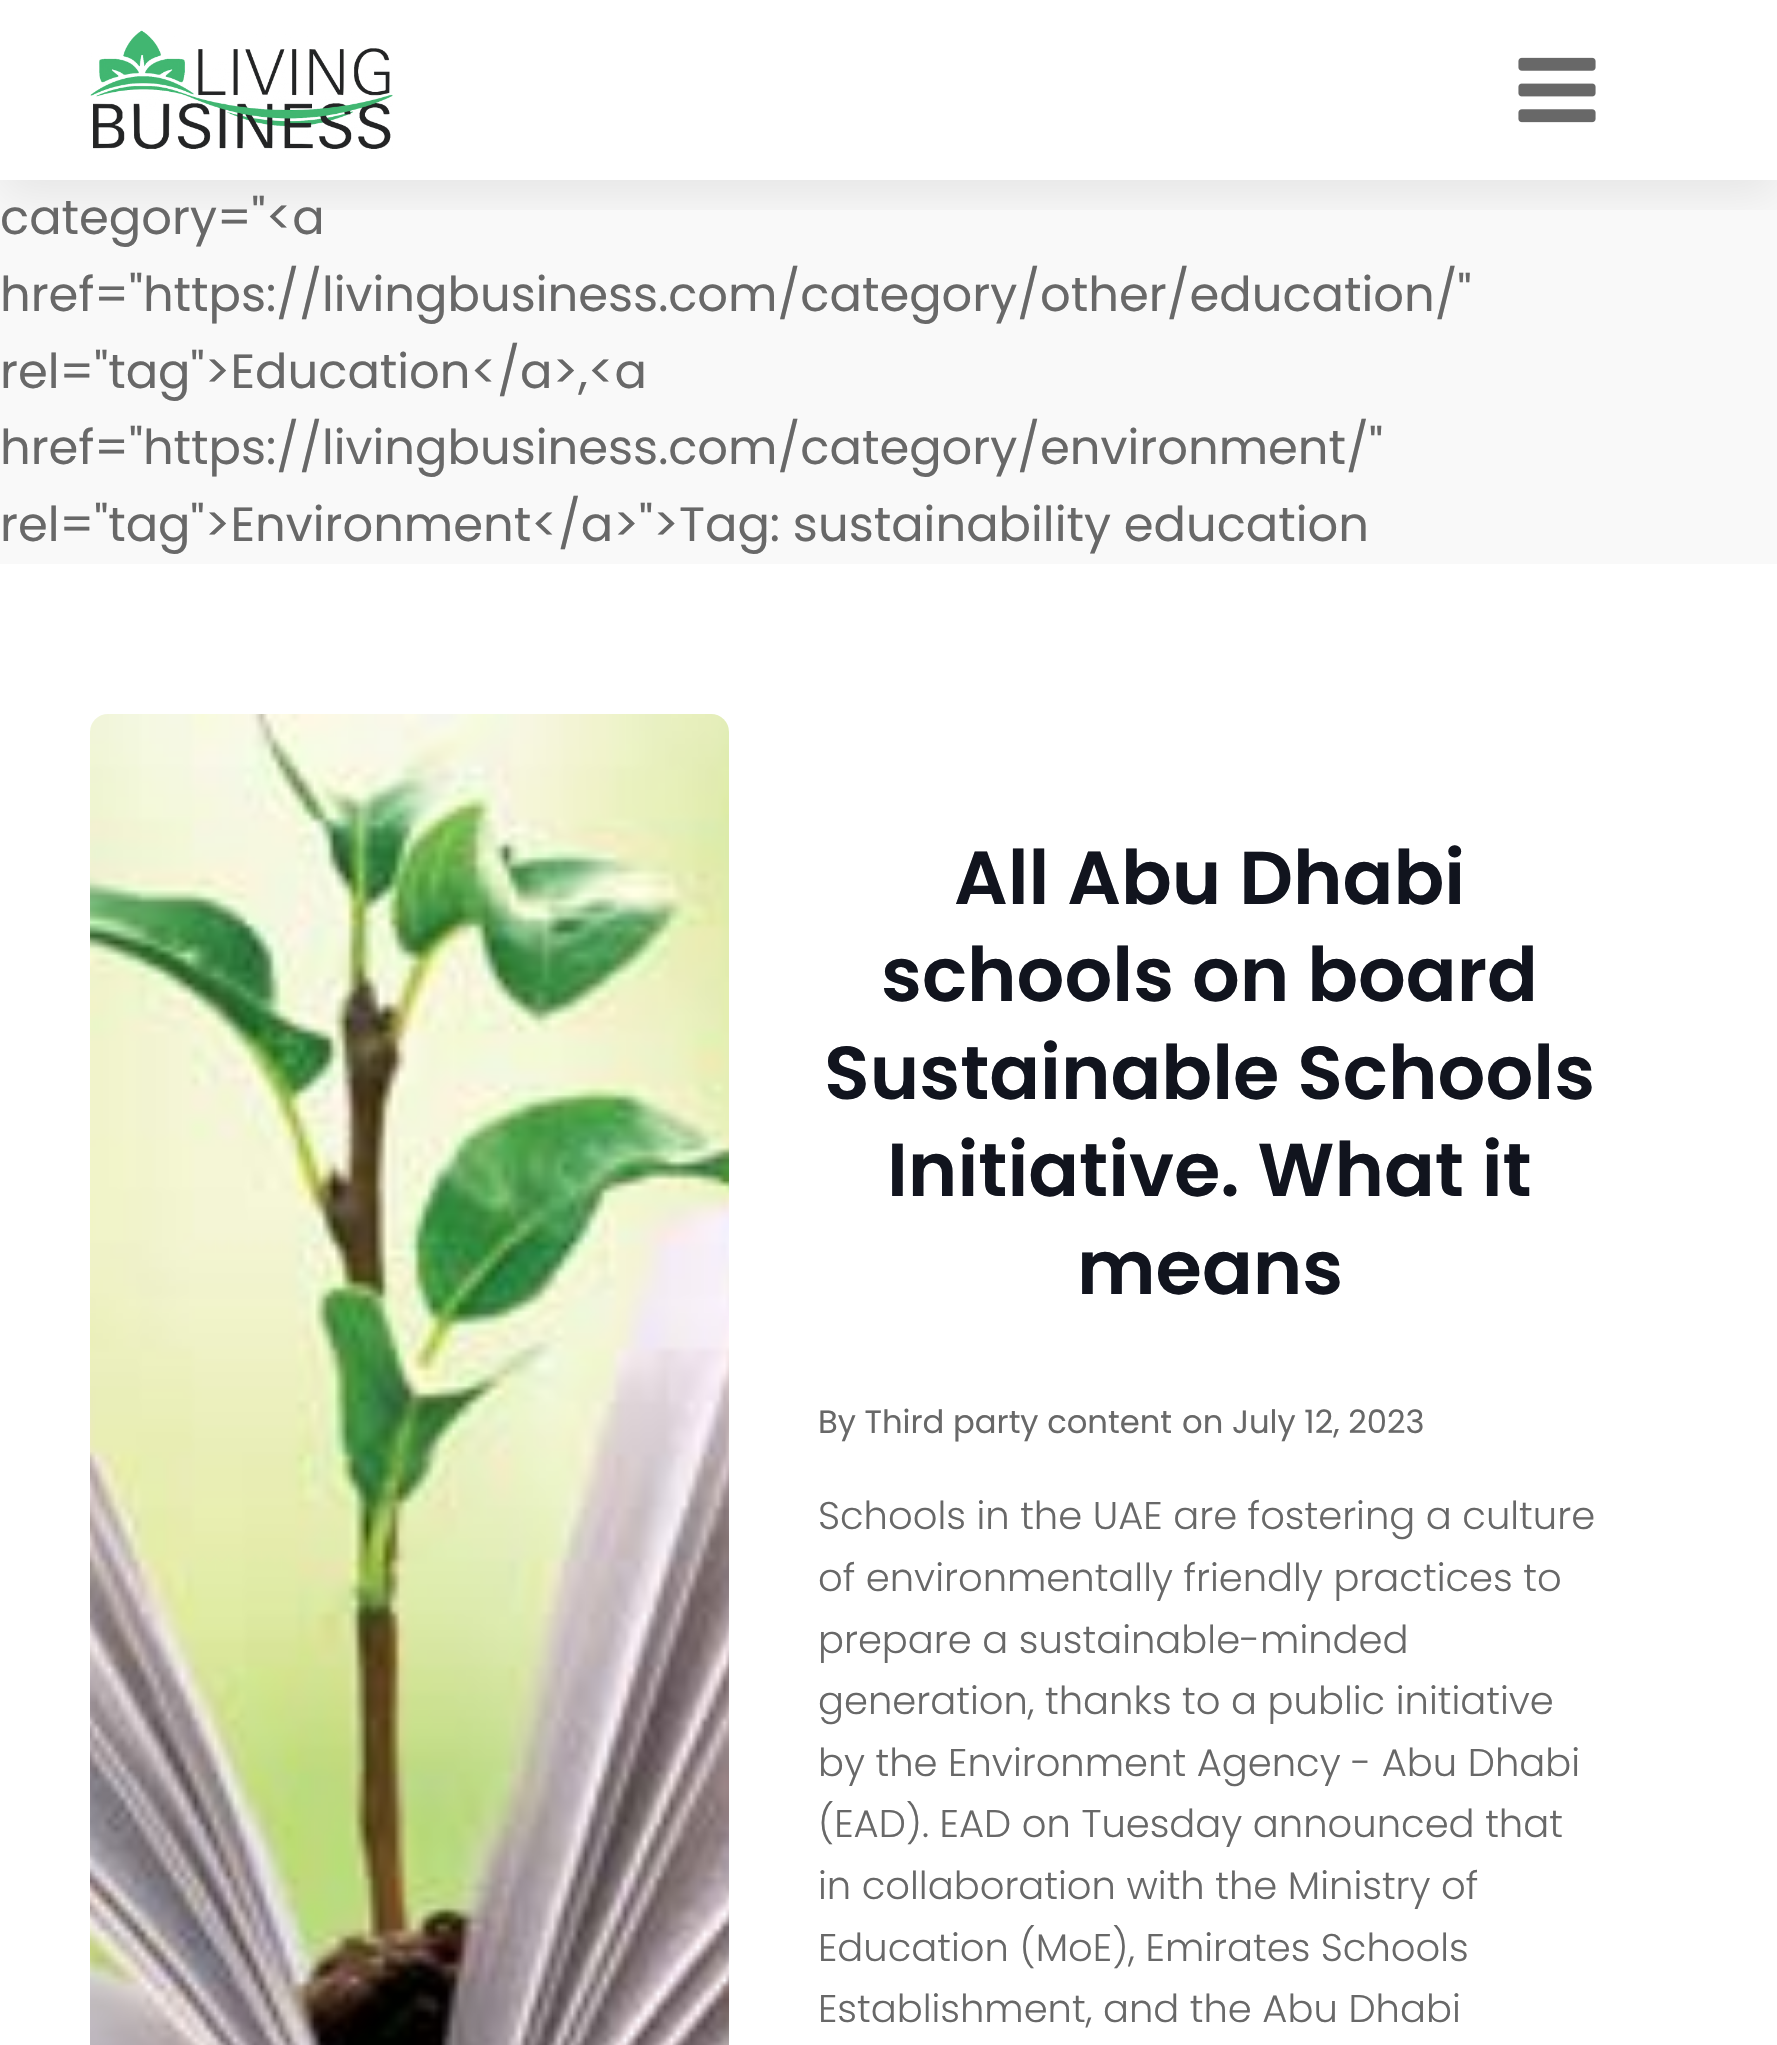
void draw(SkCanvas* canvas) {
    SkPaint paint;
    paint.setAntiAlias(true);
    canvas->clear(0xFFFFFFFF);
    paint.setColor(0xFFF9F9F9);
    canvas->drawRect(SkRect::MakeXYWH(0, 180, 1777, 384), paint);
    canvas->save();
    canvas->clipRect(SkRect::MakeXYWH(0, 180, 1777, 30));
    paint.setColor(0x14000000);
    paint.setMaskFilter(SkMaskFilter::MakeBlur(kNormal_SkBlurStyle, 22.5f));
    canvas->drawRect(SkRect::MakeXYWH(0, 15, 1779, 180), paint);
    paint.setMaskFilter(nullptr);
    canvas->restore();
    canvas->drawImageRect(SkImages::DeferredFromEncodedData(SkData::MakeFromFileName("img1.png")), SkRect::MakeXYWH(90, 30, 303, 119), SkSamplingOptions());
    canvas->drawImageRect(SkImages::DeferredFromEncodedData(SkData::MakeFromFileName("img2.png")), SkRect::MakeXYWH(1518, 57, 78, 66), SkSamplingOptions());
    SkFont font1(fontMgr->matchFamilyStyle("Poppins", SkFontStyle::Normal()), 48);
    font1.setSubpixel(true);
    paint.setColor(0xFF686868);
    canvas->drawString("category=\"<a", 0, 234, font1, paint);
    canvas->drawString("href=\"https://livingbusiness.com/category/other/education/\"", 0, 311, font1, paint);
    canvas->drawString("rel=\"tag\">Education</a>,<a", 0, 388, font1, paint);
    canvas->drawString("href=\"https://livingbusiness.com/category/environment/\"", 0, 464, font1, paint);
    canvas->drawString("rel=\"tag\">Environment</a>\">Tag: sustainability education", 0, 541, font1, paint);
    canvas->drawImageRect(SkImages::DeferredFromEncodedData(SkData::MakeFromFileName("img3.png")), SkRect::MakeXYWH(90, 714, 639, 1331), SkSamplingOptions());
    SkFont font2(fontMgr->matchFamilyStyle("Poppins", SkFontStyle(600, SkFontStyle::kNormal_Width, SkFontStyle::kUpright_Slant)), 75);
    font2.setSubpixel(true);
    paint.setColor(0xFF11141E);
    canvas->drawString("All Abu Dhabi", 954, 904, font2, paint);
    canvas->drawString("schools on board", 881, 1001, font2, paint);
    canvas->drawString("Sustainable Schools", 824, 1099, font2, paint);
    canvas->drawString("Initiative. What it", 887, 1196, font2, paint);
    canvas->drawString("means", 1077, 1294, font2, paint);
    SkFont font3(fontMgr->matchFamilyStyle("Poppins", SkFontStyle::Normal()), 32.25f);
    font3.setSubpixel(true);
    paint.setColor(0xFF686868);
    canvas->drawString("By Third party content", 818, 1433, font3, paint);
    canvas->drawString("on July 12, 2023", 1182, 1433, font3, paint);
    SkFont font4(fontMgr->matchFamilyStyle("Poppins", SkFontStyle(300, SkFontStyle::kNormal_Width, SkFontStyle::kUpright_Slant)), 38.5f);
    font4.setSubpixel(true);
    canvas->drawString("Schools in the UAE are fostering a culture", 818, 1529, font4, paint);
    canvas->drawString("of environmentally friendly practices to", 818, 1591, font4, paint);
    canvas->drawString("prepare a sustainable-minded", 818, 1653, font4, paint);
    canvas->drawString("generation, thanks to a public initiative", 818, 1714, font4, paint);
    canvas->drawString("by the Environment Agency - Abu Dhabi", 818, 1776, font4, paint);
    canvas->drawString("(EAD). EAD on Tuesday announced that", 818, 1837, font4, paint);
    canvas->drawString("in collaboration with the Ministry of", 818, 1899, font4, paint);
    canvas->drawString("Education (MoE), Emirates Schools", 818, 1961, font4, paint);
    canvas->drawString("Establishment, and the Abu Dhabi", 818, 2022, font4, paint);
}
